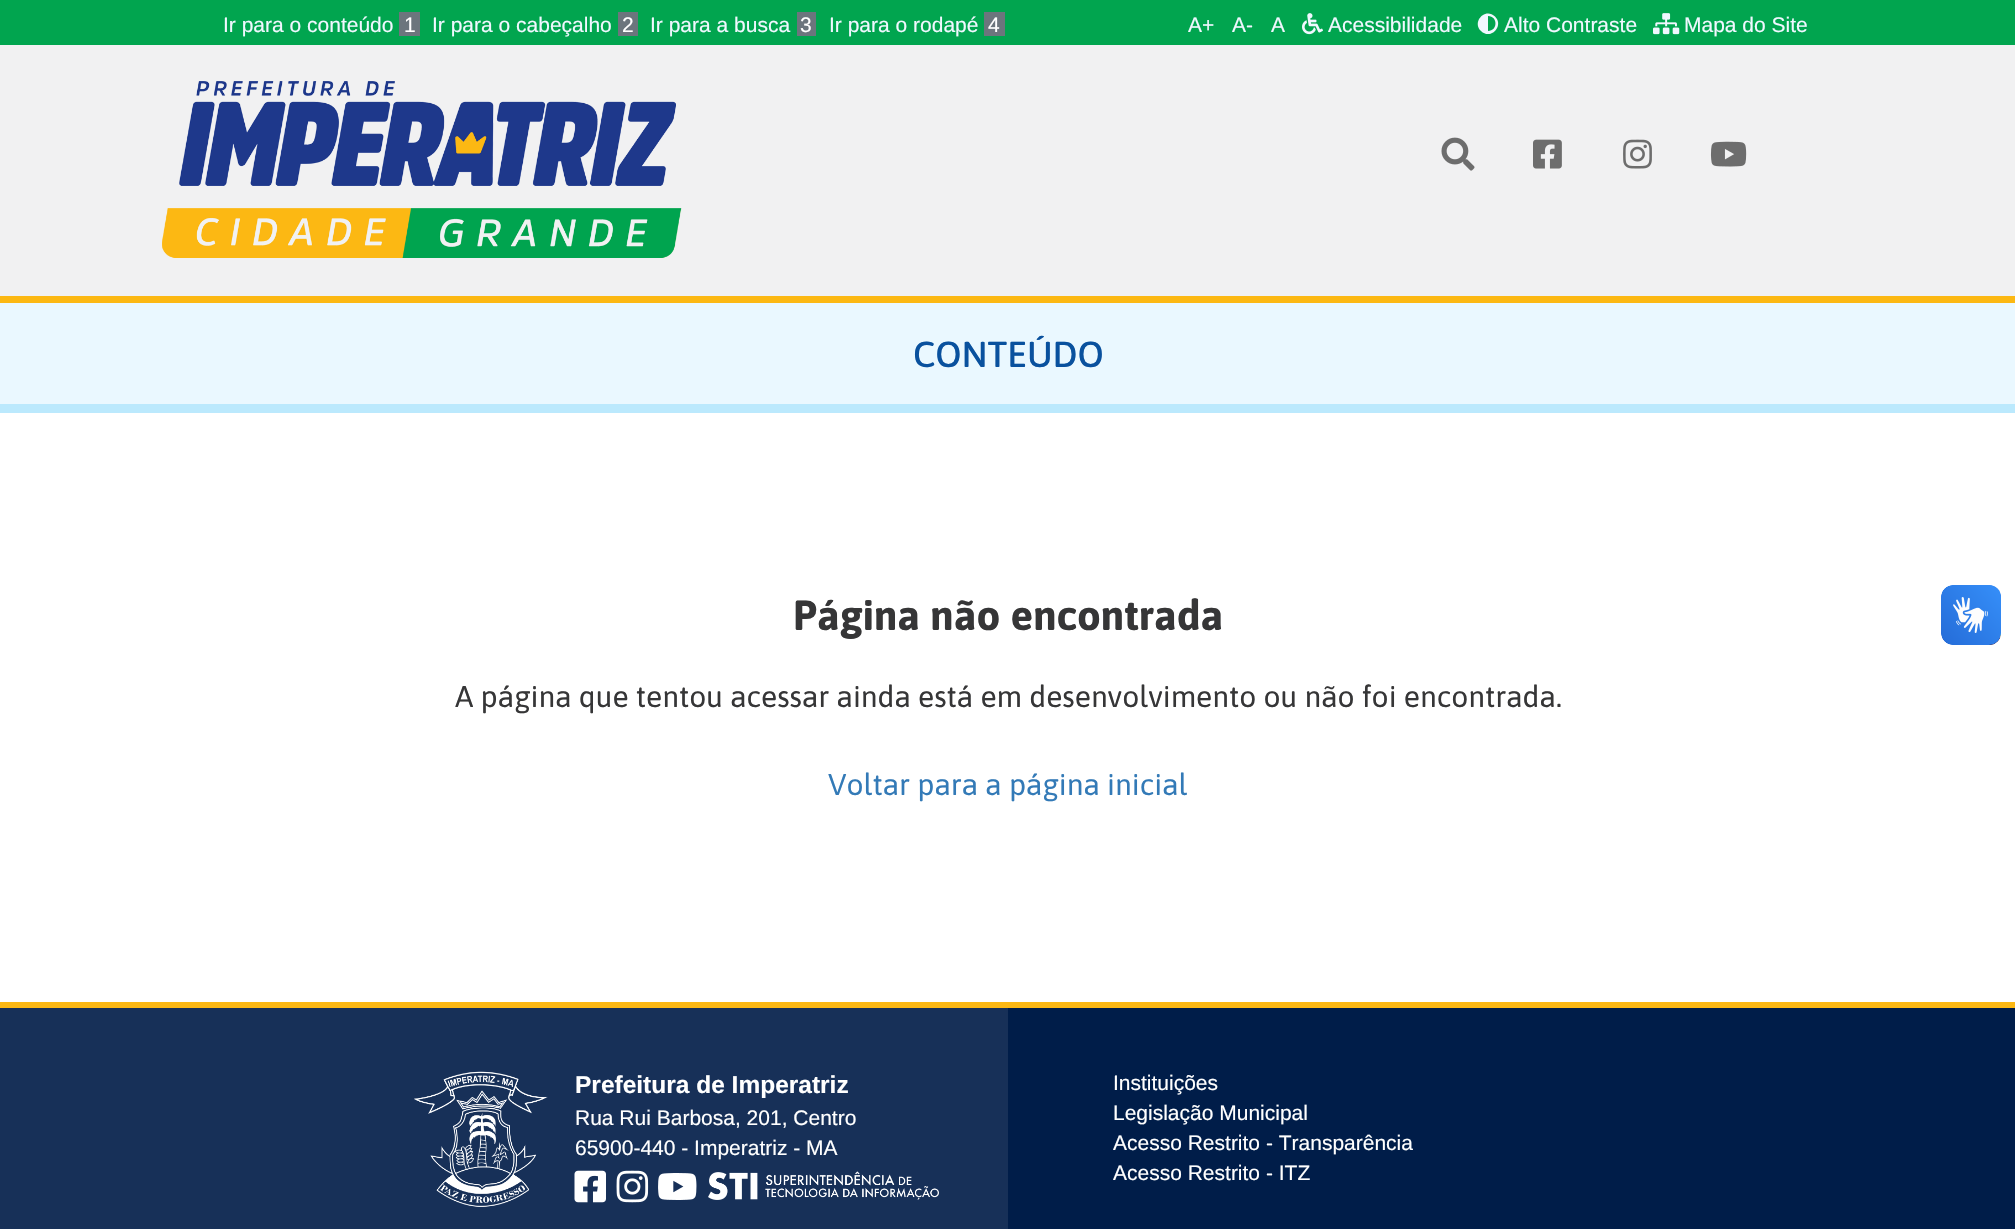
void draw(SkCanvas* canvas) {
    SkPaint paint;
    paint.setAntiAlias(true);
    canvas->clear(0xFFFFFFFF);
    paint.setColor(0xFF01A54F);
    canvas->drawRect(SkRect::MakeXYWH(0, 0, 2015, 45), paint);
    SkFont font1(fontMgr->matchFamilyStyle("Liberation Sans", SkFontStyle::Normal()), 21);
    font1.setSubpixel(true);
    paint.setColor(0xFFF0F8FF);
    canvas->drawString("Ir para o conteúdo", 223, 32, font1, paint);
    paint.setColor(0xFF6C757D);
    canvas->drawRect(SkRect::MakeXYWH(399, 12, 21, 24), paint);
    paint.setColor(0xFFFFFFFF);
    canvas->drawString("1", 404, 32, font1, paint);
    paint.setColor(0xFFF0F8FF);
    canvas->drawString("Ir para o cabeçalho", 432, 32, font1, paint);
    paint.setColor(0xFF6C757D);
    canvas->drawRect(SkRect::MakeXYWH(618, 12, 20, 24), paint);
    paint.setColor(0xFFFFFFFF);
    canvas->drawString("2", 622, 32, font1, paint);
    paint.setColor(0xFFF0F8FF);
    canvas->drawString("Ir para a busca", 650, 32, font1, paint);
    paint.setColor(0xFF6C757D);
    canvas->drawRect(SkRect::MakeXYWH(797, 12, 19, 24), paint);
    paint.setColor(0xFFFFFFFF);
    canvas->drawString("3", 800, 32, font1, paint);
    paint.setColor(0xFFF0F8FF);
    canvas->drawString("Ir para o rodapé", 829, 32, font1, paint);
    paint.setColor(0xFF6C757D);
    canvas->drawRect(SkRect::MakeXYWH(984, 12, 21, 24), paint);
    paint.setColor(0xFFFFFFFF);
    canvas->drawString("4", 988, 32, font1, paint);
    paint.setColor(0xFFF0F8FF);
    canvas->drawString("A+", 1188, 32, font1, paint);
    canvas->drawString("A-", 1232, 32, font1, paint);
    canvas->drawString("A", 1271, 32, font1, paint);
    canvas->drawImageRect(SkImages::DeferredFromEncodedData(SkData::MakeFromFileName("img1.png")), SkRect::MakeXYWH(1302, 13, 21, 22), SkSamplingOptions());
    canvas->drawString("Acessibilidade", 1328, 32, font1, paint);
    canvas->drawPath(SkPathBuilder().moveTo(1481, 31).cubicTo(1471.5f, 21.5f, 1485.5f, 7, 1495, 16.5f).cubicTo(1504.5f, 26, 1490.5f, 40.5f, 1481, 31).close().moveTo(1488, 31).cubicTo(1498, 31, 1498, 16, 1488, 16).close().detach(), paint);
    canvas->drawString("Alto Contraste", 1504, 32, font1, paint);
    canvas->drawImageRect(SkImages::DeferredFromEncodedData(SkData::MakeFromFileName("img2.png")), SkRect::MakeXYWH(1653, 13, 27, 22), SkSamplingOptions());
    canvas->drawString("Mapa do Site", 1684, 32, font1, paint);
    paint.setColor(0xFFF1F1F2);
    canvas->drawRect(SkRect::MakeXYWH(0, 45, 2015, 251), paint);
    paint.setColor(0xFFFCB813);
    canvas->drawRect(SkRect::MakeXYWH(0, 296, 2015, 7), paint);
    canvas->drawImageRect(SkImages::DeferredFromEncodedData(SkData::MakeFromFileName("img3.png")), SkRect::MakeXYWH(162, 81, 520, 177), SkSamplingOptions());
    canvas->drawImageRect(SkImages::DeferredFromEncodedData(SkData::MakeFromFileName("img4.png")), SkRect::MakeXYWH(1441, 137, 34, 34), SkSamplingOptions());
    canvas->drawImageRect(SkImages::DeferredFromEncodedData(SkData::MakeFromFileName("img5.png")), SkRect::MakeXYWH(1533, 139, 29, 30), SkSamplingOptions());
    canvas->drawImageRect(SkImages::DeferredFromEncodedData(SkData::MakeFromFileName("img6.png")), SkRect::MakeXYWH(1623, 139, 29, 30), SkSamplingOptions());
    canvas->drawImageRect(SkImages::DeferredFromEncodedData(SkData::MakeFromFileName("img7.png")), SkRect::MakeXYWH(1710, 141, 37, 26), SkSamplingOptions());
    paint.setColor(0xFFEAF8FF);
    canvas->drawRect(SkRect::MakeXYWH(0, 303, 2015, 101), paint);
    paint.setColor(0xFFBBE9FD);
    canvas->drawRect(SkRect::MakeXYWH(0, 404, 2015, 9), paint);
    SkFont font2(fontMgr->matchFamilyStyle("Asap", SkFontStyle(500, SkFontStyle::kNormal_Width, SkFontStyle::kUpright_Slant)), 36);
    font2.setSubpixel(true);
    paint.setColor(0xFF09519E);
    canvas->drawString("CONTEÚDO", 913, 367, font2, paint);
    SkFont font3(fontMgr->matchFamilyStyle("Asap", SkFontStyle::Bold()), 42);
    font3.setSubpixel(true);
    paint.setColor(0xFF363637);
    canvas->drawString("Página não encontrada", 793, 630, font3, paint);
    SkFont font4(fontMgr->matchFamilyStyle("Asap", SkFontStyle::Normal()), 30);
    font4.setSubpixel(true);
    canvas->drawString("A página que tentou acessar ainda está em desenvolvimento ou não foi encontrada.", 455, 707, font4, paint);
    paint.setColor(0xFF337AB7);
    canvas->drawString("Voltar para a página inicial", 828, 795, font4, paint);
    canvas->drawImageRect(SkImages::DeferredFromEncodedData(SkData::MakeFromFileName("img8.png")), SkRect::MakeXYWH(1941, 585, 60, 60), SkSamplingOptions());
    canvas->drawImageRect(SkImages::DeferredFromEncodedData(SkData::MakeFromFileName("img9.png")), SkRect::MakeXYWH(1941, 585, 60, 60), SkSamplingOptions());
    paint.setColor(0xFFFCB813);
    canvas->drawRect(SkRect::MakeXYWH(0, 1002, 2015, 6), paint);
    paint.setColor(0xFF173058);
    canvas->drawRect(SkRect::MakeXYWH(0, 1008, 1008, 221), paint);
    canvas->drawImageRect(SkImages::DeferredFromEncodedData(SkData::MakeFromFileName("img10.png")), SkRect::MakeXYWH(414, 1071, 134, 136), SkSamplingOptions());
    SkFont font5(fontMgr->matchFamilyStyle("Liberation Sans", SkFontStyle::Bold()), 24.5f);
    font5.setSubpixel(true);
    paint.setColor(0xFFFFFFFF);
    canvas->drawString("Prefeitura de Imperatriz", 575, 1093, font5, paint);
    canvas->drawString("Rua Rui Barbosa, 201, Centro", 575, 1125, font1, paint);
    canvas->drawString("65900-440 - Imperatriz - MA", 575, 1155, font1, paint);
    canvas->drawImageRect(SkImages::DeferredFromEncodedData(SkData::MakeFromFileName("img11.png")), SkRect::MakeXYWH(574, 1170, 32, 33), SkSamplingOptions());
    canvas->drawImageRect(SkImages::DeferredFromEncodedData(SkData::MakeFromFileName("img12.png")), SkRect::MakeXYWH(616, 1170, 33, 33), SkSamplingOptions());
    canvas->drawImageRect(SkImages::DeferredFromEncodedData(SkData::MakeFromFileName("img13.png")), SkRect::MakeXYWH(658, 1173, 39, 27), SkSamplingOptions());
    canvas->drawImageRect(SkImages::DeferredFromEncodedData(SkData::MakeFromFileName("img14.png")), SkRect::MakeXYWH(708, 1171, 231, 29), SkSamplingOptions());
    paint.setColor(0xFF001D49);
    canvas->drawRect(SkRect::MakeXYWH(1008, 1008, 1007, 221), paint);
    paint.setColor(0xFFFFFFFF);
    canvas->drawString("Instituições", 1113, 1090, font1, paint);
    canvas->drawString("Legislação Municipal", 1113, 1120, font1, paint);
    canvas->drawString("Acesso Restrito - Transparência", 1113, 1150, font1, paint);
    canvas->drawString("Acesso Restrito - ITZ", 1113, 1180, font1, paint);
}
